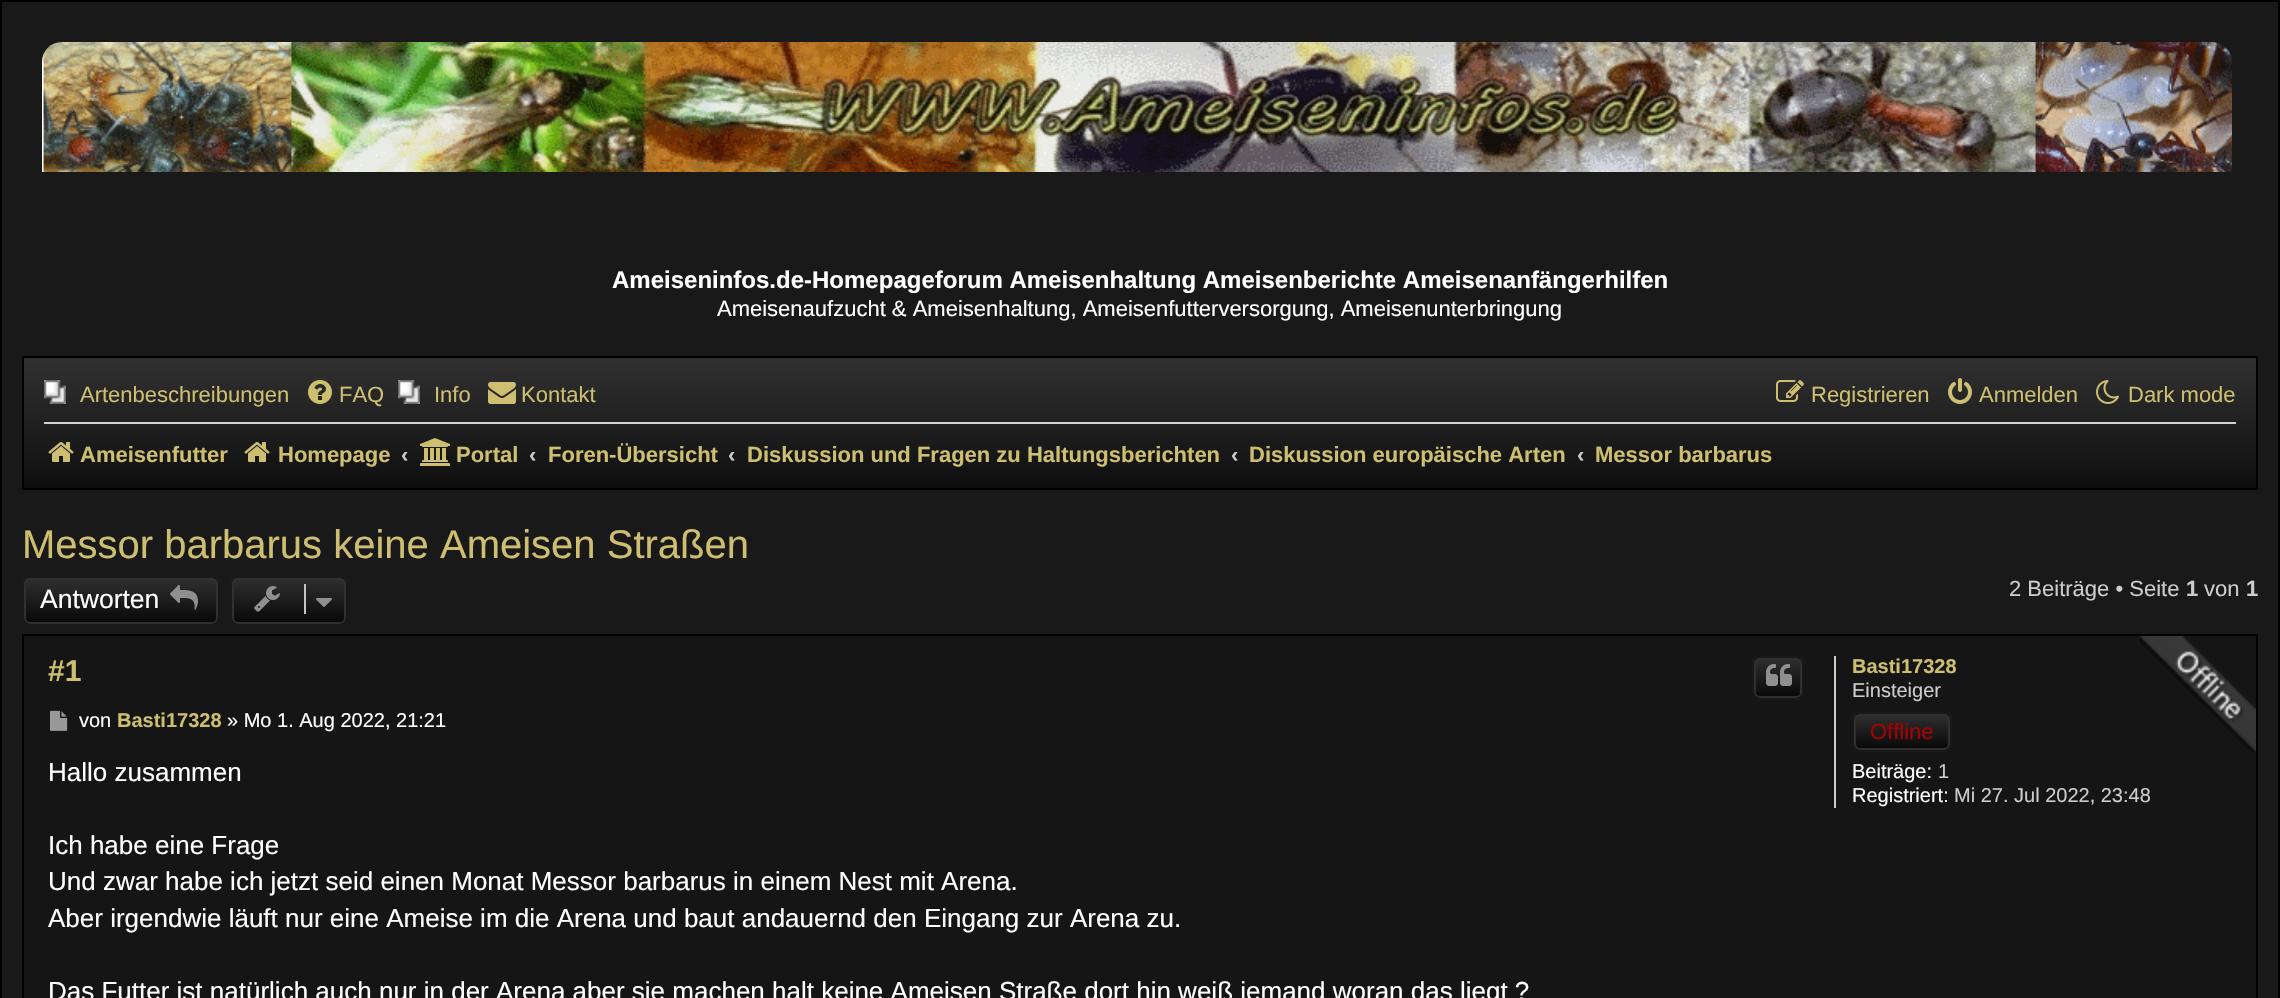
void draw(SkCanvas* canvas) {
    SkPaint paint;
    paint.setAntiAlias(true);
    canvas->clear(0xFF191919);
    paint.setStyle(SkPaint::kStroke_Style);
    paint.setStrokeWidth(2);
    paint.setColor(0xFF000000);
    canvas->drawRect(SkRect::MakeXYWH(1, 1, 2278, 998), paint);
    canvas->drawImageRect(SkImages::DeferredFromEncodedData(SkData::MakeFromFileName("img1.png")), SkRect::MakeXYWH(42, 42, 2190, 130), SkSamplingOptions());
    SkFont font1(fontMgr->matchFamilyStyle("Liberation Sans", SkFontStyle::Bold()), 24);
    font1.setSubpixel(true);
    paint.setStyle(SkPaint::kFill_Style);
    paint.setColor(0xFFFFFFFF);
    canvas->drawString("Ameiseninfos.de-Homepageforum Ameisenhaltung Ameisenberichte Ameisenanfängerhilfen", 612, 288, font1, paint);
    SkFont font2(fontMgr->matchFamilyStyle("Liberation Sans", SkFontStyle::Normal()), 22);
    font2.setSubpixel(true);
    canvas->drawString("Ameisenaufzucht & Ameisenhaltung, Ameisenfutterversorgung, Ameisenunterbringung", 717, 316, font2, paint);
    {
        const SkColor colors[] = {0xFF303030, 0xFF303030, 0xFF000000};
        const float stops[] = {0, 0.02f, 1};
        const SkPoint ends[] = {{1140, 358}, {1140, 542}};
        paint.setShader(SkGradientShader::MakeLinear(ends, colors, stops, 3, SkTileMode::kClamp));
        paint.setAlpha(255);
    }
    canvas->drawRect(SkRect::MakeXYWH(24, 358, 2232, 130), paint);
    paint.setStyle(SkPaint::kStroke_Style);
    paint.setShader(nullptr);
    paint.setColor(0xFF000000);
    canvas->drawRect(SkRect::MakeXYWH(23, 357, 2234, 132), paint);
    canvas->drawImageRect(SkImages::DeferredFromEncodedData(SkData::MakeFromFileName("img2.png")), SkRect::MakeXYWH(44, 380, 22, 24), SkSamplingOptions());
    paint.setStyle(SkPaint::kFill_Style);
    paint.setColor(0xFFCDBE70);
    canvas->drawString("Artenbeschreibungen", 80, 402, font2, paint);
    canvas->drawImageRect(SkImages::DeferredFromEncodedData(SkData::MakeFromFileName("img3.png")), SkRect::MakeXYWH(308, 380, 24, 24), SkSamplingOptions());
    canvas->drawString("FAQ", 339, 402, font2, paint);
    canvas->drawImageRect(SkImages::DeferredFromEncodedData(SkData::MakeFromFileName("img2.png")), SkRect::MakeXYWH(398, 380, 22, 24), SkSamplingOptions());
    canvas->drawString("Info", 434, 402, font2, paint);
    canvas->drawImageRect(SkImages::DeferredFromEncodedData(SkData::MakeFromFileName("img4.png")), SkRect::MakeXYWH(488, 382, 28, 22), SkSamplingOptions());
    canvas->drawString("Kontakt", 521, 402, font2, paint);
    canvas->drawImageRect(SkImages::DeferredFromEncodedData(SkData::MakeFromFileName("img5.png")), SkRect::MakeXYWH(1776, 380, 28, 22), SkSamplingOptions());
    canvas->drawString("Registrieren", 1811, 402, font2, paint);
    canvas->drawImageRect(SkImages::DeferredFromEncodedData(SkData::MakeFromFileName("img6.png")), SkRect::MakeXYWH(1948, 378, 24, 26), SkSamplingOptions());
    canvas->drawString("Anmelden", 1979, 402, font2, paint);
    canvas->drawImageRect(SkImages::DeferredFromEncodedData(SkData::MakeFromFileName("img7.png")), SkRect::MakeXYWH(2096, 380, 23, 24), SkSamplingOptions());
    canvas->drawString("Dark mode", 2128, 402, font2, paint);
    paint.setColor(0xFFD2D2D2);
    canvas->drawRect(SkRect::MakeXYWH(44, 422, 2192, 2), paint);
    canvas->drawImageRect(SkImages::DeferredFromEncodedData(SkData::MakeFromFileName("img8.png")), SkRect::MakeXYWH(48, 442, 26, 20), SkSamplingOptions());
    SkFont font3(fontMgr->matchFamilyStyle("Liberation Sans", SkFontStyle::Bold()), 22);
    font3.setSubpixel(true);
    paint.setColor(0xFFCDBE70);
    canvas->drawString("Ameisenfutter", 80, 462, font3, paint);
    canvas->drawImageRect(SkImages::DeferredFromEncodedData(SkData::MakeFromFileName("img8.png")), SkRect::MakeXYWH(244, 442, 26, 20), SkSamplingOptions());
    canvas->drawString("Homepage", 278, 462, font3, paint);
    paint.setColor(0xFFCCCCCC);
    canvas->drawString("‹", 401, 462, font3, paint);
    canvas->drawImageRect(SkImages::DeferredFromEncodedData(SkData::MakeFromFileName("img9.png")), SkRect::MakeXYWH(420, 438, 30, 28), SkSamplingOptions());
    paint.setColor(0xFFCDBE70);
    canvas->drawString("Portal", 456, 462, font3, paint);
    paint.setColor(0xFFCCCCCC);
    canvas->drawString("‹", 529, 462, font3, paint);
    paint.setColor(0xFFCDBE70);
    canvas->drawString("Foren-Übersicht", 548, 462, font3, paint);
    paint.setColor(0xFFCCCCCC);
    canvas->drawString("‹", 728, 462, font3, paint);
    paint.setColor(0xFFCDBE70);
    canvas->drawString("Diskussion und Fragen zu Haltungsberichten", 747, 462, font3, paint);
    paint.setColor(0xFFCCCCCC);
    canvas->drawString("‹", 1231, 462, font3, paint);
    paint.setColor(0xFFCDBE70);
    canvas->drawString("Diskussion europäische Arten", 1249, 462, font3, paint);
    paint.setColor(0xFFCCCCCC);
    canvas->drawString("‹", 1577, 462, font3, paint);
    paint.setColor(0xFFCDBE70);
    canvas->drawString("Messor barbarus", 1595, 462, font3, paint);
    SkFont font4(fontMgr->matchFamilyStyle("Liberation Sans", SkFontStyle::Normal()), 40);
    font4.setSubpixel(true);
    canvas->drawString("Messor barbarus keine Ameisen Straßen", 22, 558, font4, paint);
    canvas->save();
    canvas->clipPath(SkPathBuilder().moveTo(30, 576).lineTo(212, 576).cubicTo(216.5f, 576, 220, 579.5f, 220, 584).lineTo(220, 618).cubicTo(220, 622.5f, 216.5f, 626, 212, 626).lineTo(30, 626).cubicTo(25.5f, 626, 22, 622.5f, 22, 618).lineTo(22, 584).cubicTo(22, 579.5f, 25.5f, 576, 30, 576).close().detach(), true);
    {
        const SkColor colors[] = {0xFF303030, 0xFF070707};
        const float stops[] = {0, 1};
        const SkPoint ends[] = {{121, 578}, {121, 624}};
        paint.setShader(SkGradientShader::MakeLinear(ends, colors, stops, 2, SkTileMode::kClamp));
        paint.setAlpha(255);
    }
    canvas->drawRect(SkRect::MakeXYWH(22, 578, 198, 46), paint);
    canvas->restore();
    paint.setStyle(SkPaint::kStroke_Style);
    paint.setShader(nullptr);
    paint.setColor(0xFF303030);
    canvas->drawRoundRect(SkRect::MakeXYWH(25, 579, 192, 44), 5, 5, paint);
    paint.setColor(0xFF191919);
    canvas->drawRoundRect(SkRect::MakeXYWH(23, 577, 196, 48), 7, 7, paint);
    SkFont font5(fontMgr->matchFamilyStyle("Liberation Sans", SkFontStyle::Normal()), 26.5f);
    font5.setSubpixel(true);
    paint.setStyle(SkPaint::kFill_Style);
    paint.setColor(0xFFFFFFFF);
    canvas->drawString("Antworten", 40, 608, font5, paint);
    canvas->drawImageRect(SkImages::DeferredFromEncodedData(SkData::MakeFromFileName("img10.png")), SkRect::MakeXYWH(170, 585, 28, 25), SkSamplingOptions());
    canvas->save();
    canvas->clipPath(SkPathBuilder().moveTo(238, 576).lineTo(340, 576).cubicTo(344.5f, 576, 348, 579.5f, 348, 584).lineTo(348, 618).cubicTo(348, 622.5f, 344.5f, 626, 340, 626).lineTo(238, 626).cubicTo(233.5f, 626, 230, 622.5f, 230, 618).lineTo(230, 584).cubicTo(230, 579.5f, 233.5f, 576, 238, 576).close().detach(), true);
    {
        const SkColor colors[] = {0xFF303030, 0xFF070707};
        const float stops[] = {0, 1};
        const SkPoint ends[] = {{289, 578}, {289, 624}};
        paint.setShader(SkGradientShader::MakeLinear(ends, colors, stops, 2, SkTileMode::kClamp));
        paint.setAlpha(255);
    }
    canvas->drawRect(SkRect::MakeXYWH(230, 578, 118, 46), paint);
    canvas->restore();
    paint.setStyle(SkPaint::kStroke_Style);
    paint.setShader(nullptr);
    paint.setColor(0xFF303030);
    canvas->drawRoundRect(SkRect::MakeXYWH(233, 579, 112, 44), 5, 5, paint);
    paint.setColor(0xFF191919);
    canvas->drawRoundRect(SkRect::MakeXYWH(231, 577, 116, 48), 7, 7, paint);
    canvas->drawImageRect(SkImages::DeferredFromEncodedData(SkData::MakeFromFileName("img11.png")), SkRect::MakeXYWH(254, 586, 26, 26), SkSamplingOptions());
    paint.setStyle(SkPaint::kFill_Style);
    paint.setColor(0xFFC7C3BF);
    canvas->drawRect(SkRect::MakeXYWH(304, 584, 2, 30), paint);
    canvas->drawImageRect(SkImages::DeferredFromEncodedData(SkData::MakeFromFileName("img12.png")), SkRect::MakeXYWH(316, 598, 16, 9), SkSamplingOptions());
    paint.setColor(0xFFCCCCCC);
    canvas->drawString("2 Beiträge • Seite", 2009, 596, font2, paint);
    canvas->drawString("1", 2186, 596, font3, paint);
    canvas->drawString("von", 2204, 596, font2, paint);
    canvas->drawString("1", 2246, 596, font3, paint);
    paint.setColor(0xFF151515);
    canvas->drawRect(SkRect::MakeXYWH(24, 636, 2232, 362), paint);
    canvas->drawImageRect(SkImages::DeferredFromEncodedData(SkData::MakeFromFileName("img13.png")), SkRect::MakeXYWH(2140, 636, 116, 116), SkSamplingOptions());
    paint.setStyle(SkPaint::kStroke_Style);
    paint.setColor(0xFF000000);
    canvas->drawRect(SkRect::MakeXYWH(23, 635, 2234, 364), paint);
    SkFont font6(fontMgr->matchFamilyStyle("Liberation Sans", SkFontStyle::Bold()), 30);
    font6.setSubpixel(true);
    paint.setStyle(SkPaint::kFill_Style);
    paint.setColor(0xFFCDBE70);
    canvas->drawString("#1", 48, 681, font6, paint);
    canvas->save();
    canvas->clipPath(SkPathBuilder().moveTo(1760, 656).lineTo(1796, 656).cubicTo(1800.5f, 656, 1804, 659.5f, 1804, 664).lineTo(1804, 692).cubicTo(1804, 696.5f, 1800.5f, 700, 1796, 700).lineTo(1760, 700).cubicTo(1755.5f, 700, 1752, 696.5f, 1752, 692).lineTo(1752, 664).cubicTo(1752, 659.5f, 1755.5f, 656, 1760, 656).close().detach(), true);
    {
        const SkColor colors[] = {0xFF303030, 0xFF070707};
        const float stops[] = {0, 1};
        const SkPoint ends[] = {{1778, 658}, {1778, 698}};
        paint.setShader(SkGradientShader::MakeLinear(ends, colors, stops, 2, SkTileMode::kClamp));
        paint.setAlpha(255);
    }
    canvas->drawRect(SkRect::MakeXYWH(1752, 658, 52, 40), paint);
    canvas->restore();
    paint.setStyle(SkPaint::kStroke_Style);
    paint.setShader(nullptr);
    paint.setColor(0xFF303030);
    canvas->drawRoundRect(SkRect::MakeXYWH(1755, 659, 46, 38), 5, 5, paint);
    paint.setColor(0xFF191919);
    canvas->drawRoundRect(SkRect::MakeXYWH(1753, 657, 50, 42), 7, 7, paint);
    canvas->drawImageRect(SkImages::DeferredFromEncodedData(SkData::MakeFromFileName("img14.png")), SkRect::MakeXYWH(1766, 664, 26, 22), SkSamplingOptions());
    canvas->drawImageRect(SkImages::DeferredFromEncodedData(SkData::MakeFromFileName("img15.png")), SkRect::MakeXYWH(50, 710, 18, 21), SkSamplingOptions());
    SkFont font7(fontMgr->matchFamilyStyle("Liberation Sans", SkFontStyle::Normal()), 20);
    font7.setSubpixel(true);
    paint.setStyle(SkPaint::kFill_Style);
    paint.setColor(0xFFFFFFFF);
    canvas->drawString("von", 79, 727, font7, paint);
    SkFont font8(fontMgr->matchFamilyStyle("Liberation Sans", SkFontStyle::Bold()), 20);
    font8.setSubpixel(true);
    paint.setColor(0xFFCDBE70);
    canvas->drawString("Basti17328", 117, 727, font8, paint);
    paint.setColor(0xFFFFFFFF);
    canvas->drawString("» Mo 1. Aug 2022, 21:21", 227, 727, font7, paint);
    SkFont font9(fontMgr->matchFamilyStyle("Liberation Sans", SkFontStyle::Normal()), 26);
    font9.setSubpixel(true);
    canvas->drawString("Hallo zusammen", 48, 781, font9, paint);
    canvas->drawString("Ich habe eine Frage", 48, 854, font9, paint);
    canvas->drawString("Und zwar habe ich jetzt seid einen Monat Messor barbarus in einem Nest mit Arena.", 48, 890, font9, paint);
    canvas->drawString("Aber irgendwie läuft nur eine Ameise im die Arena und baut andauernd den Eingang zur Arena zu.", 48, 927, font9, paint);
    canvas->drawString("Das Futter ist natürlich auch nur in der Arena aber sie machen halt keine Ameisen Straße dort hin weiß jemand woran das liegt ?", 48, 1000, font9, paint);
    paint.setColor(0xFFCCCCCC);
    canvas->drawRect(SkRect::MakeXYWH(1834, 656, 2, 152), paint);
    paint.setColor(0xFFCDBE70);
    canvas->drawString("Basti17328", 1852, 673, font8, paint);
    paint.setColor(0xFFCCCCCC);
    canvas->drawString("Einsteiger", 1852, 697, font7, paint);
    canvas->save();
    canvas->clipPath(SkPathBuilder().moveTo(1860, 712).lineTo(1944, 712).cubicTo(1948.5f, 712, 1952, 715.5f, 1952, 720).lineTo(1952, 744).cubicTo(1952, 748.5f, 1948.5f, 752, 1944, 752).lineTo(1860, 752).cubicTo(1855.5f, 752, 1852, 748.5f, 1852, 744).lineTo(1852, 720).cubicTo(1852, 715.5f, 1855.5f, 712, 1860, 712).close().detach(), true);
    {
        const SkColor colors[] = {0xFF303030, 0xFF070707};
        const float stops[] = {0, 1};
        const SkPoint ends[] = {{1902, 714}, {1902, 750}};
        paint.setShader(SkGradientShader::MakeLinear(ends, colors, stops, 2, SkTileMode::kClamp));
        paint.setAlpha(255);
    }
    canvas->drawRect(SkRect::MakeXYWH(1852, 714, 100, 36), paint);
    canvas->restore();
    paint.setStyle(SkPaint::kStroke_Style);
    paint.setShader(nullptr);
    paint.setColor(0xFF303030);
    canvas->drawRoundRect(SkRect::MakeXYWH(1855, 715, 94, 34), 5, 5, paint);
    paint.setColor(0xFF191919);
    canvas->drawRoundRect(SkRect::MakeXYWH(1853, 713, 98, 38), 7, 7, paint);
    paint.setStyle(SkPaint::kFill_Style);
    paint.setColor(0xFFAA0000);
    canvas->drawString("Offline", 1870, 739, font2, paint);
    paint.setColor(0xFFFFFFFF);
    canvas->drawString("Beiträge:", 1852, 778, font7, paint);
    paint.setColor(0xFFCCCCCC);
    canvas->drawString("1", 1938, 778, font7, paint);
    paint.setColor(0xFFFFFFFF);
    canvas->drawString("Registriert:", 1852, 802, font7, paint);
    paint.setColor(0xFFCCCCCC);
    canvas->drawString("Mi 27. Jul 2022, 23:48", 1954, 802, font7, paint);
}
